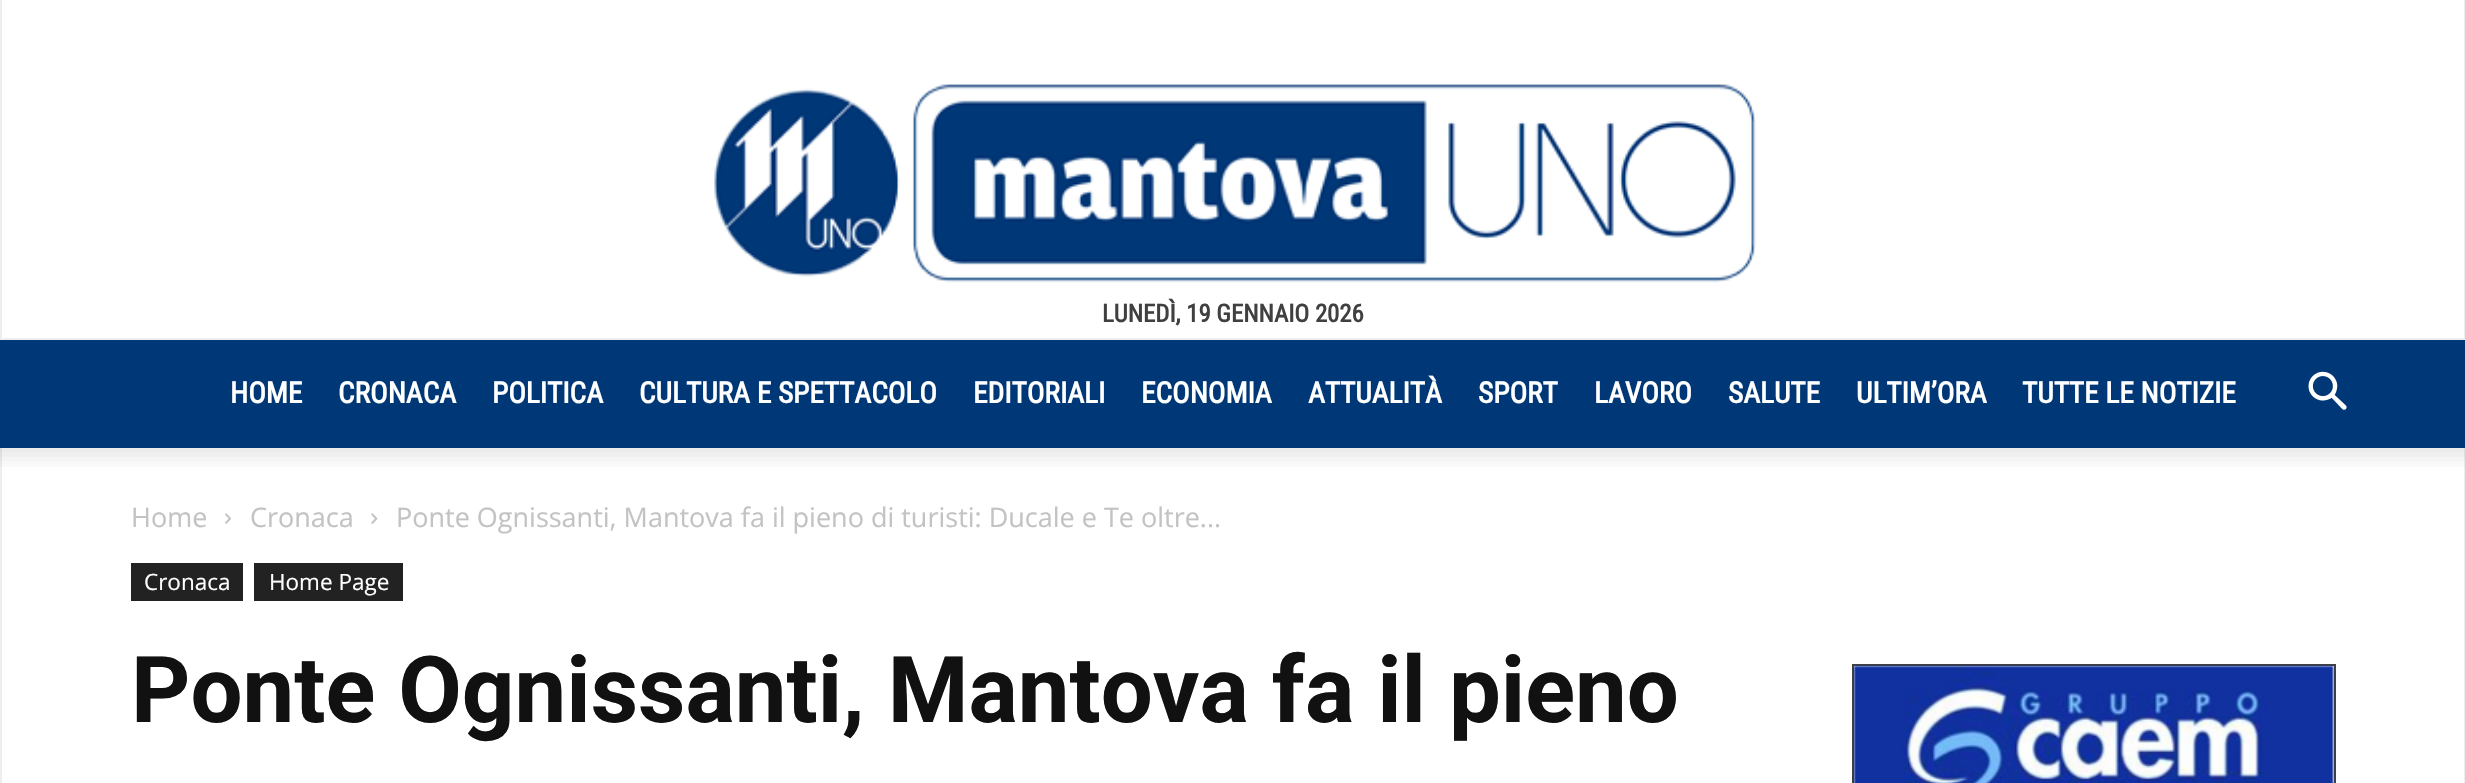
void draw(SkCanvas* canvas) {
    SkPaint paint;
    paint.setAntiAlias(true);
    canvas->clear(0xFFFFFFFF);
    paint.setColor(0xFFEEEEEE);
    canvas->drawRect(SkRect::MakeXYWH(2464, 0, 1, 338), paint);
    canvas->drawRect(SkRect::MakeXYWH(0, 0, 2, 338), paint);
    canvas->drawImageRect(SkImages::DeferredFromEncodedData(SkData::MakeFromFileName("img1.png")), SkRect::MakeXYWH(714, 83, 1042, 200), SkSamplingOptions());
    SkFont font1(fontMgr->matchFamilyStyle("Roboto Condensed", SkFontStyle::Bold()), 24.75f);
    font1.setSubpixel(true);
    paint.setColor(0xFF404040);
    canvas->drawString("LUNEDÌ, 19 GENNAIO 2026", 1102, 322, font1, paint);
    paint.setColor(0xFF003776);
    canvas->drawRect(SkRect::MakeXYWH(0, 340, 2465, 108), paint);
    paint.setColor(0xFFEEEEEE);
    canvas->drawRect(SkRect::MakeXYWH(0, 338, 2465, 2), paint);
    SkFont font2(fontMgr->matchFamilyStyle("Roboto Condensed", SkFontStyle::Bold()), 29.25f);
    font2.setSubpixel(true);
    paint.setColor(0xFFFFFFFF);
    canvas->drawString("HOME", 230, 403, font2, paint);
    canvas->drawString("CRONACA", 338, 403, font2, paint);
    canvas->drawString("POLITICA", 492, 403, font2, paint);
    canvas->drawString("CULTURA E SPETTACOLO", 639, 403, font2, paint);
    canvas->drawString("EDITORIALI", 973, 403, font2, paint);
    canvas->drawString("ECONOMIA", 1141, 403, font2, paint);
    canvas->drawString("ATTUALITÀ", 1308, 403, font2, paint);
    canvas->drawString("SPORT", 1478, 403, font2, paint);
    canvas->drawString("LAVORO", 1594, 403, font2, paint);
    canvas->drawString("SALUTE", 1728, 403, font2, paint);
    canvas->drawString("ULTIM’ORA", 1856, 403, font2, paint);
    canvas->drawString("TUTTE LE NOTIZIE", 2022, 403, font2, paint);
    canvas->drawImageRect(SkImages::DeferredFromEncodedData(SkData::MakeFromFileName("img2.png")), SkRect::MakeXYWH(2308, 371, 39, 39), SkSamplingOptions());
    paint.setColor(0xFFEEEEEE);
    canvas->drawRect(SkRect::MakeXYWH(2464, 448, 1, 335), paint);
    canvas->drawRect(SkRect::MakeXYWH(0, 448, 2, 335), paint);
    canvas->drawImageRect(SkImages::DeferredFromEncodedData(SkData::MakeFromFileName("img3.png")), SkRect::MakeXYWH(0, 448, 2465, 19), SkSamplingOptions());
    SkFont font3(fontMgr->matchFamilyStyle("Open Sans", SkFontStyle::Normal()), 27);
    font3.setSubpixel(true);
    paint.setColor(0xFFC3C3C3);
    canvas->drawString("Home", 131, 527, font3, paint);
    canvas->drawImageRect(SkImages::DeferredFromEncodedData(SkData::MakeFromFileName("img4.png")), SkRect::MakeXYWH(225, 513, 6, 11), SkSamplingOptions());
    canvas->drawString("Cronaca", 250, 527, font3, paint);
    canvas->drawImageRect(SkImages::DeferredFromEncodedData(SkData::MakeFromFileName("img5.png")), SkRect::MakeXYWH(371, 513, 7, 11), SkSamplingOptions());
    canvas->drawString("Ponte Ognissanti, Mantova fa il pieno di turisti: Ducale e Te oltre...", 396, 527, font3, paint);
    paint.setColor(0xFF222222);
    canvas->drawRect(SkRect::MakeXYWH(131, 563, 112, 38), paint);
    SkFont font4(fontMgr->matchFamilyStyle("Open Sans", SkFontStyle::Normal()), 22.5f);
    font4.setSubpixel(true);
    paint.setColor(0xFFFFFFFF);
    canvas->drawString("Cronaca", 144, 590, font4, paint);
    paint.setColor(0xFF222222);
    canvas->drawRect(SkRect::MakeXYWH(254, 563, 149, 38), paint);
    paint.setColor(0xFFFFFFFF);
    canvas->drawString("Home Page", 269, 590, font4, paint);
    SkFont font5(fontMgr->matchFamilyStyle("Roboto", SkFontStyle::Bold()), 92.25f);
    font5.setSubpixel(true);
    paint.setColor(0xFF111111);
    canvas->drawString("Ponte Ognissanti, Mantova fa il pieno", 131, 722, font5, paint);
    paint.setStyle(SkPaint::kStroke_Style);
    paint.setStrokeWidth(2);
    paint.setColor(0xFF404040);
    canvas->drawRect(SkRect::MakeXYWH(1853, 665, 482, 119), paint);
    canvas->drawImageRect(SkImages::DeferredFromEncodedData(SkData::MakeFromFileName("img6.png")), SkRect::MakeXYWH(1853, 665, 482, 118), SkSamplingOptions());
}
